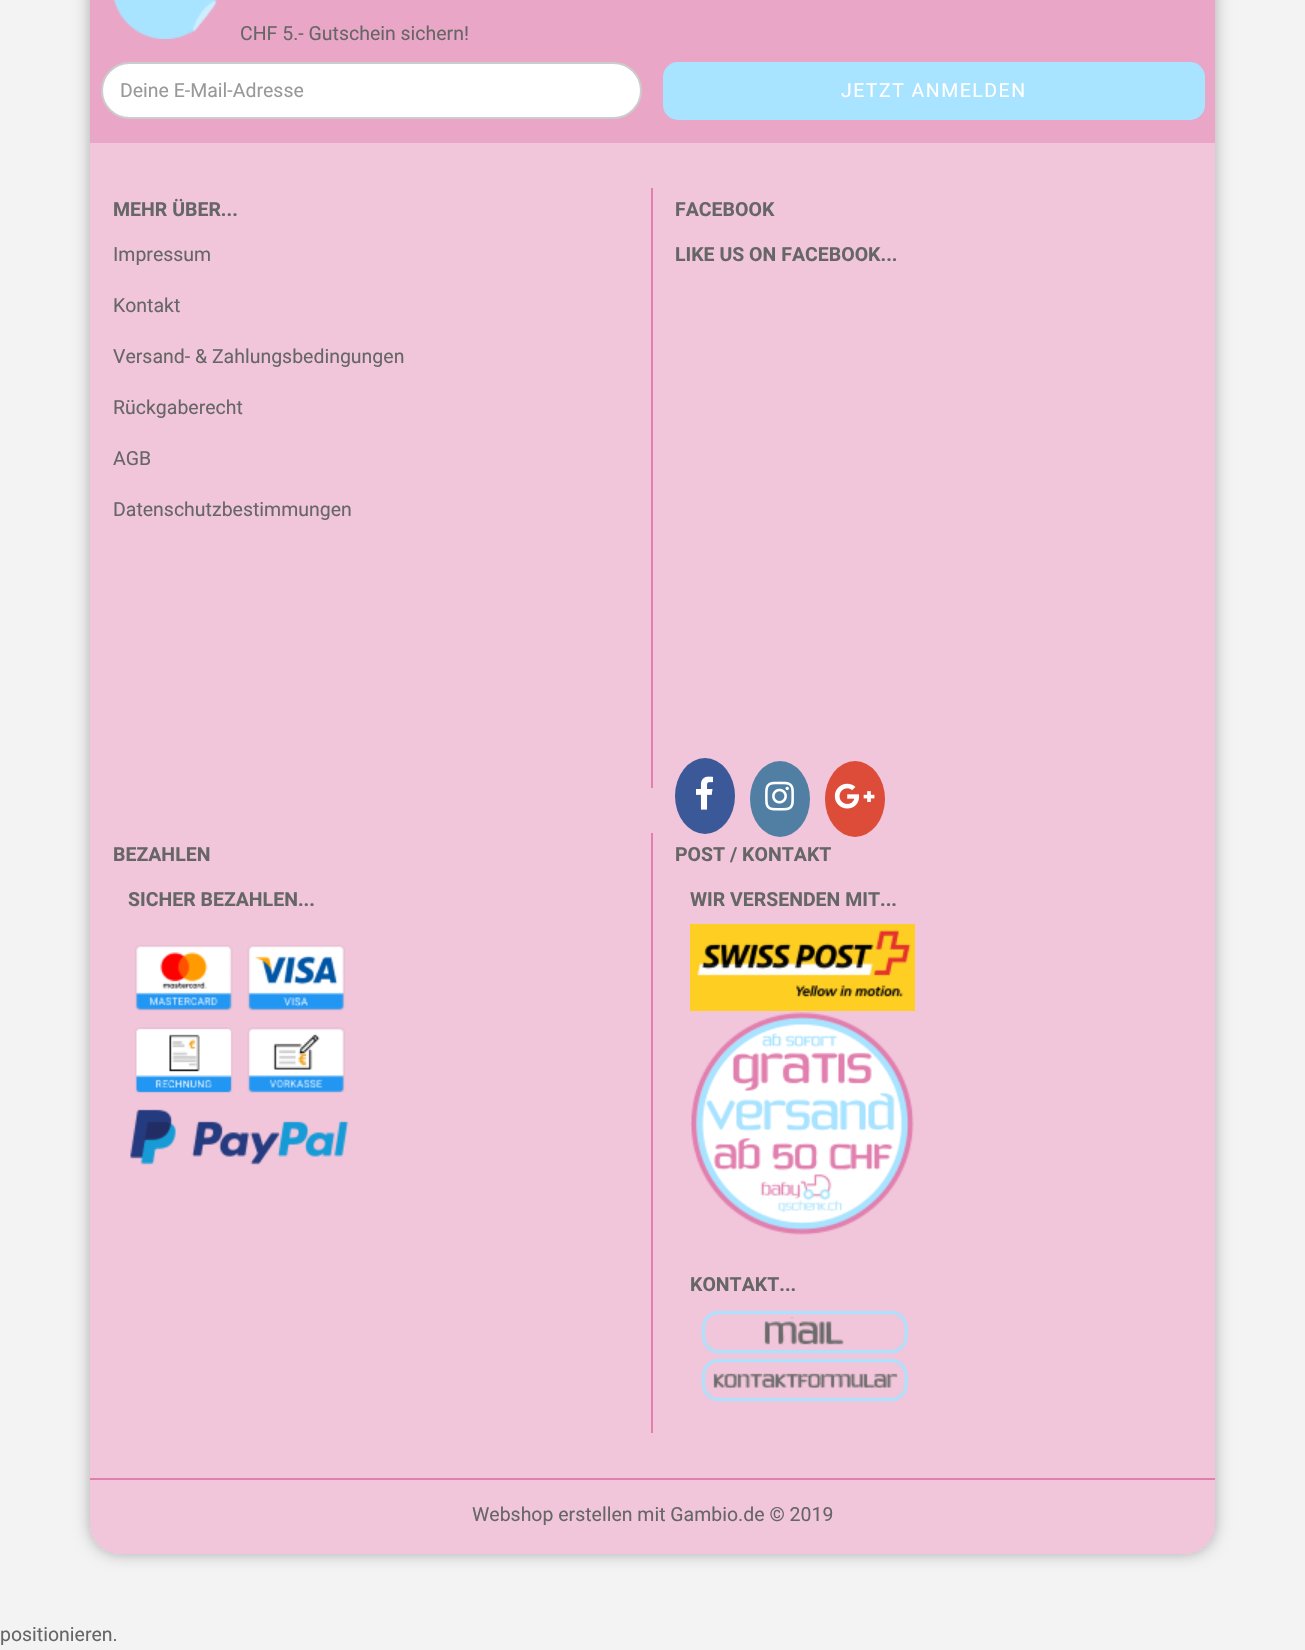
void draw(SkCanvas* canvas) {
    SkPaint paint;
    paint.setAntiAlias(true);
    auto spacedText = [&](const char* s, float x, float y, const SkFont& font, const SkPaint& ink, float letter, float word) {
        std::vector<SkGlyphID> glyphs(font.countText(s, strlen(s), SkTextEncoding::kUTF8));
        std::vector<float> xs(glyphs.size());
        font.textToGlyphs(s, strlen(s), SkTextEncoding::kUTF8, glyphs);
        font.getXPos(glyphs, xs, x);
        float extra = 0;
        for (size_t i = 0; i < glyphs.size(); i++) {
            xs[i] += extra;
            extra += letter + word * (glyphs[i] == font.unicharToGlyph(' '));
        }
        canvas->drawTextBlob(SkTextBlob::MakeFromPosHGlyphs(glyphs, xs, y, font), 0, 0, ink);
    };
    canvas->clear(0xFFF3F3F3);
    paint.setColor(0x4D000000);
    paint.setMaskFilter(SkMaskFilter::MakeBlur(kNormal_SkBlurStyle, 7.5f));
    canvas->drawRoundRect(SkRect::MakeXYWH(90, -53, 1125, 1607), 30, 30, paint);
    paint.setMaskFilter(nullptr);
    paint.setColor(0xFFFFFFFF);
    canvas->drawRoundRect(SkRect::MakeXYWH(90, -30, 1125, 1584), 30, 30, paint);
    paint.setColor(0x73E17FAE);
    canvas->drawPath(SkPathBuilder().moveTo(90, -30).lineTo(1215, -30).lineTo(1215, 1524).cubicTo(1215, 1540.5f, 1201.5f, 1554, 1185, 1554).lineTo(120, 1554).cubicTo(103.5f, 1554, 90, 1540.5f, 90, 1524).close().detach(), paint);
    paint.setColor(0xFFEAA6C6);
    canvas->drawRect(SkRect::MakeXYWH(90, 0, 1125, 143), paint);
    canvas->drawImageRect(SkImages::DeferredFromEncodedData(SkData::MakeFromFileName("img1.png")), SkRect::MakeXYWH(113, 0, 104, 39), SkSamplingOptions());
    SkFont font1(fontMgr->matchFamilyStyle("Roboto", SkFontStyle::Normal()), 19.5f);
    font1.setSubpixel(true);
    paint.setColor(0xFF666666);
    canvas->drawString("CHF 5.- Gutschein sichern!", 240, 40, font1, paint);
    paint.setColor(0xFFFFFFFF);
    canvas->drawRoundRect(SkRect::MakeXYWH(102, 63, 539, 55), 27.5f, 27.5f, paint);
    paint.setStyle(SkPaint::kStroke_Style);
    paint.setStrokeWidth(2);
    paint.setColor(0xFFCCCCCC);
    canvas->drawRoundRect(SkRect::MakeXYWH(102, 63, 539, 55), 27.5f, 27.5f, paint);
    paint.setStyle(SkPaint::kFill_Style);
    paint.setColor(0xFF999999);
    canvas->drawString("Deine E-Mail-Adresse", 120, 97, font1, paint);
    paint.setColor(0xFFA8E3FF);
    canvas->drawRoundRect(SkRect::MakeXYWH(664, 63, 540, 56), 14, 14, paint);
    paint.setStyle(SkPaint::kStroke_Style);
    canvas->drawRoundRect(SkRect::MakeXYWH(664, 63, 540, 56), 14, 14, paint);
    paint.setStyle(SkPaint::kFill_Style);
    paint.setColor(0xFFFFFFFF);
    spacedText("JETZT ANMELDEN", 841, 97, font1, paint, 1.5f, 0);
    paint.setColor(0xFFE17FAE);
    canvas->drawRect(SkRect::MakeXYWH(90, 1478, 1125, 2), paint);
    canvas->drawRect(SkRect::MakeXYWH(651, 188, 2, 600), paint);
    SkFont font2(fontMgr->matchFamilyStyle("Roboto", SkFontStyle::Bold()), 19.5f);
    font2.setSubpixel(true);
    paint.setColor(0xFF666666);
    canvas->drawString("MEHR ÜBER...", 113, 216, font2, paint);
    canvas->drawString("Impressum", 113, 261, font1, paint);
    canvas->drawString("Kontakt", 113, 312, font1, paint);
    canvas->drawString("Versand- & Zahlungsbedingungen", 113, 363, font1, paint);
    canvas->drawString("Rückgaberecht", 113, 414, font1, paint);
    canvas->drawString("AGB", 113, 465, font1, paint);
    canvas->drawString("Datenschutzbestimmungen", 113, 516, font1, paint);
    canvas->drawString("FACEBOOK", 675, 216, font2, paint);
    canvas->drawString("LIKE US ON FACEBOOK...", 675, 261, font2, paint);
    paint.setColor(0xFFE17FAE);
    canvas->drawRect(SkRect::MakeXYWH(651, 833, 2, 600), paint);
    paint.setColor(0xFF666666);
    canvas->drawString("BEZAHLEN", 113, 861, font2, paint);
    canvas->drawString("SICHER BEZAHLEN...", 128, 906, font2, paint);
    canvas->drawImageRect(SkImages::DeferredFromEncodedData(SkData::MakeFromFileName("img2.png")), SkRect::MakeXYWH(130, 945, 219, 220), SkSamplingOptions());
    canvas->drawString("POST / KONTAKT", 675, 861, font2, paint);
    paint.setColor(0xFF3B5998);
    canvas->drawOval(SkRect::MakeXYWH(675, 758, 60, 76), paint);
    canvas->drawImageRect(SkImages::DeferredFromEncodedData(SkData::MakeFromFileName("img3.png")), SkRect::MakeXYWH(696, 776, 17, 34), SkSamplingOptions());
    paint.setColor(0xFF517FA4);
    canvas->drawOval(SkRect::MakeXYWH(750, 761, 60, 76), paint);
    canvas->drawImageRect(SkImages::DeferredFromEncodedData(SkData::MakeFromFileName("img4.png")), SkRect::MakeXYWH(765, 781, 29, 30), SkSamplingOptions());
    paint.setColor(0xFFDD4B39);
    canvas->drawOval(SkRect::MakeXYWH(825, 761, 60, 76), paint);
    canvas->drawImageRect(SkImages::DeferredFromEncodedData(SkData::MakeFromFileName("img5.png")), SkRect::MakeXYWH(834, 783, 41, 26), SkSamplingOptions());
    paint.setColor(0xFF666666);
    canvas->drawString("WIR VERSENDEN MIT...", 690, 906, font2, paint);
    canvas->drawImageRect(SkImages::DeferredFromEncodedData(SkData::MakeFromFileName("img6.png")), SkRect::MakeXYWH(690, 924, 225, 87), SkSamplingOptions());
    canvas->drawImageRect(SkImages::DeferredFromEncodedData(SkData::MakeFromFileName("img7.png")), SkRect::MakeXYWH(690, 1012, 224, 223), SkSamplingOptions());
    canvas->drawString("KONTAKT...", 690, 1291, font2, paint);
    canvas->drawImageRect(SkImages::DeferredFromEncodedData(SkData::MakeFromFileName("img8.png")), SkRect::MakeXYWH(701, 1310, 207, 44), SkSamplingOptions());
    canvas->drawImageRect(SkImages::DeferredFromEncodedData(SkData::MakeFromFileName("img9.png")), SkRect::MakeXYWH(701, 1358, 207, 44), SkSamplingOptions());
    canvas->drawString("Webshop erstellen mit Gambio.de © 2019", 472, 1521, font1, paint);
    canvas->drawString("positionieren.", 0, 1641, font1, paint);
}
